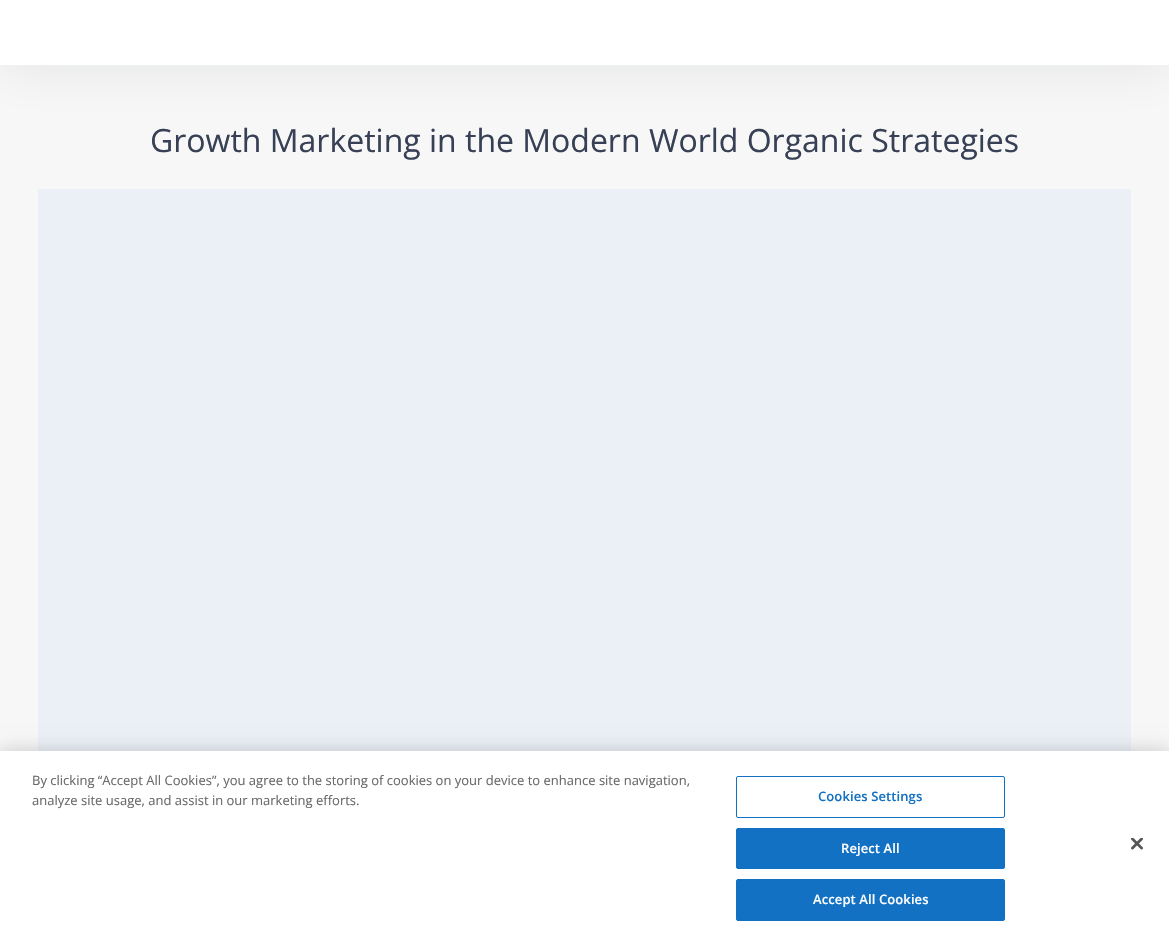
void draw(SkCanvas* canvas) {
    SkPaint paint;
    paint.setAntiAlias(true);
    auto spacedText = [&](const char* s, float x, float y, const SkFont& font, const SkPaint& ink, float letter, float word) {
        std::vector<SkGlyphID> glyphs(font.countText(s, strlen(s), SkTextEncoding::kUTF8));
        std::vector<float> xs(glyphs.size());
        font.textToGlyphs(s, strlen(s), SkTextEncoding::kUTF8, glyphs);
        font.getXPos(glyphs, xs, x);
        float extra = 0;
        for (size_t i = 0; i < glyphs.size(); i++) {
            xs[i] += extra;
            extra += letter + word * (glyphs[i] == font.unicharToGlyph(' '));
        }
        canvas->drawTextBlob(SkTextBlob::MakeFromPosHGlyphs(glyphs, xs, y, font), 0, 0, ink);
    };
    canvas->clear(0xFFF7F7F7);
    paint.setColor(0x140F1F29);
    paint.setMaskFilter(SkMaskFilter::MakeBlur(kNormal_SkBlurStyle, 26.5f));
    canvas->drawRect(SkRect::MakeXYWH(0, 4, 1169, 65), paint);
    paint.setMaskFilter(nullptr);
    paint.setColor(0xFFFFFFFF);
    canvas->drawRect(SkRect::MakeXYWH(0, 0, 1169, 65), paint);
    SkFont font1(fontMgr->matchFamilyStyle("Open Sans", SkFontStyle::Normal()), 32);
    font1.setSubpixel(true);
    paint.setColor(0xFF374054);
    canvas->drawString("Growth Marketing in the Modern World Organic Strategies", 150, 152, font1, paint);
    paint.setColor(0xFFEBF0F7);
    canvas->drawRect(SkRect::MakeXYWH(38, 189, 1093, 562), paint);
    paint.setColor(0x33000000);
    paint.setMaskFilter(SkMaskFilter::MakeBlur(kNormal_SkBlurStyle, 9));
    canvas->drawRect(SkRect::MakeXYWH(0, 751, 1169, 190), paint);
    paint.setMaskFilter(nullptr);
    paint.setColor(0xFFFFFFFF);
    canvas->drawRect(SkRect::MakeXYWH(0, 751, 1169, 190), paint);
    SkFont font2(fontMgr->matchFamilyStyle("Open Sans", SkFontStyle::Normal()), 13);
    font2.setSubpixel(true);
    paint.setColor(0xFF696969);
    canvas->drawString("By clicking “Accept All Cookies”, you agree to the storing of cookies on your device to enhance site navigation,", 32, 785, font2, paint);
    canvas->drawString("analyze site usage, and assist in our marketing efforts.", 32, 805, font2, paint);
    paint.setStyle(SkPaint::kStroke_Style);
    paint.setStrokeWidth(1);
    paint.setColor(0xFF1371C3);
    canvas->drawRoundRect(SkRect::MakeXYWH(736.5f, 776.5f, 268, 41), 1.5f, 1.5f, paint);
    SkFont font3(fontMgr->matchFamilyStyle("Open Sans", SkFontStyle(600, SkFontStyle::kNormal_Width, SkFontStyle::kUpright_Slant)), 13);
    font3.setSubpixel(true);
    paint.setStyle(SkPaint::kFill_Style);
    spacedText("Cookies Settings", 818, 801, font3, paint, 0.1f, 0);
    canvas->drawRoundRect(SkRect::MakeXYWH(736.5f, 828.5f, 268, 40), 1.5f, 1.5f, paint);
    paint.setStyle(SkPaint::kStroke_Style);
    canvas->drawRoundRect(SkRect::MakeXYWH(736.5f, 828.5f, 268, 40), 1.5f, 1.5f, paint);
    paint.setStyle(SkPaint::kFill_Style);
    paint.setColor(0xFFFFFFFF);
    spacedText("Reject All", 841, 853, font3, paint, 0.1f, 0);
    paint.setColor(0xFF1371C3);
    canvas->drawRoundRect(SkRect::MakeXYWH(736.5f, 879.5f, 268, 41), 1.5f, 1.5f, paint);
    paint.setStyle(SkPaint::kStroke_Style);
    canvas->drawRoundRect(SkRect::MakeXYWH(736.5f, 879.5f, 268, 41), 1.5f, 1.5f, paint);
    paint.setStyle(SkPaint::kFill_Style);
    paint.setColor(0xFFFFFFFF);
    spacedText("Accept All Cookies", 813, 904, font3, paint, 0.1f, 0);
    canvas->drawImageRect(SkImages::DeferredFromEncodedData(SkData::MakeFromFileName("img1.png")), SkRect::MakeXYWH(1131, 838, 12, 12), SkSamplingOptions());
}
